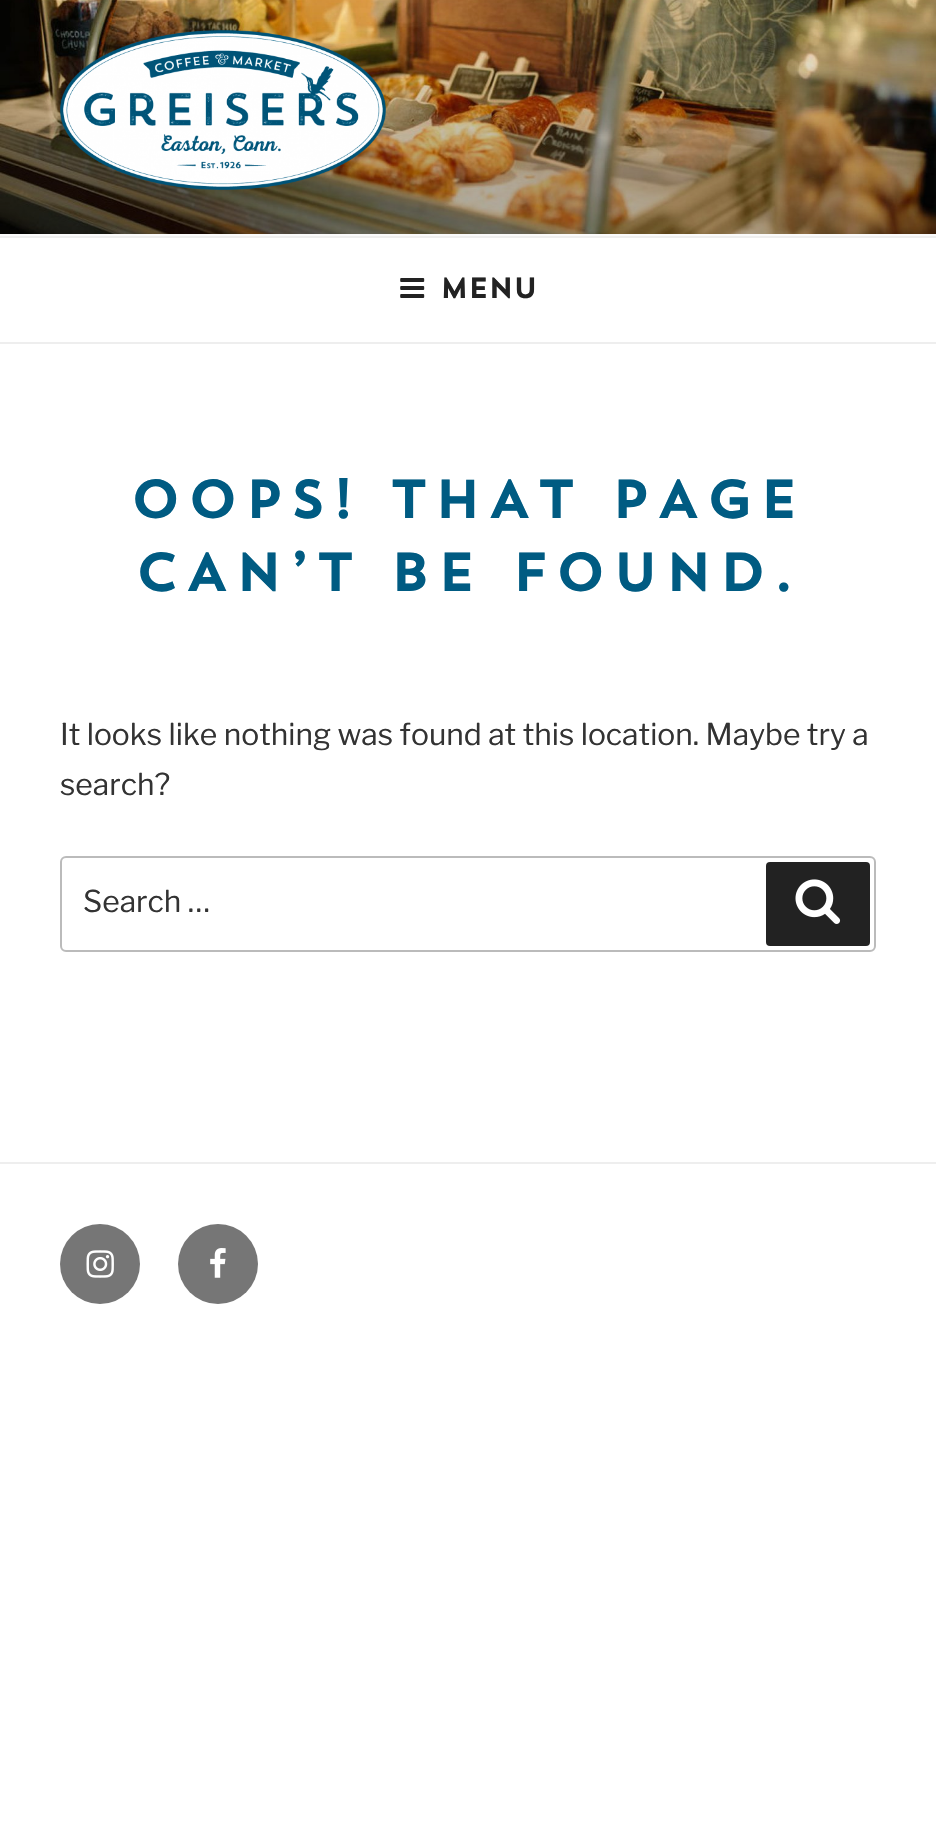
void draw(SkCanvas* canvas) {
    SkPaint paint;
    paint.setAntiAlias(true);
    auto spacedText = [&](const char* s, float x, float y, const SkFont& font, const SkPaint& ink, float letter, float word) {
        std::vector<SkGlyphID> glyphs(font.countText(s, strlen(s), SkTextEncoding::kUTF8));
        std::vector<float> xs(glyphs.size());
        font.textToGlyphs(s, strlen(s), SkTextEncoding::kUTF8, glyphs);
        font.getXPos(glyphs, xs, x);
        float extra = 0;
        for (size_t i = 0; i < glyphs.size(); i++) {
            xs[i] += extra;
            extra += letter + word * (glyphs[i] == font.unicharToGlyph(' '));
        }
        canvas->drawTextBlob(SkTextBlob::MakeFromPosHGlyphs(glyphs, xs, y, font), 0, 0, ink);
    };
    canvas->clear(0xFFFFFFFF);
    paint.setColor(0xFFFAFAFA);
    canvas->drawRect(SkRect::MakeXYWH(0, 234, 936, 2), paint);
    canvas->drawImageRect(SkImages::DeferredFromEncodedData(SkData::MakeFromFileName("img1.png")), SkRect::MakeXYWH(0, 0, 936, 234), SkSamplingOptions());
    canvas->drawImageRect(SkImages::DeferredFromEncodedData(SkData::MakeFromFileName("img2.png")), SkRect::MakeXYWH(60, 30, 326, 160), SkSamplingOptions());
    paint.setColor(0xFFEEEEEE);
    canvas->drawRect(SkRect::MakeXYWH(0, 236, 936, 2), paint);
    canvas->drawRect(SkRect::MakeXYWH(0, 342, 936, 2), paint);
    canvas->drawImageRect(SkImages::DeferredFromEncodedData(SkData::MakeFromFileName("img3.png")), SkRect::MakeXYWH(400, 278, 25, 20), SkSamplingOptions());
    SkFont font1(fontMgr->matchFamilyStyle("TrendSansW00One", SkFontStyle::Bold()), 28);
    font1.setSubpixel(true);
    paint.setColor(0xFF222222);
    canvas->drawString("Menu", 440, 298, font1, paint);
    SkFont font2(fontMgr->matchFamilyStyle("TrendSansW00One", SkFontStyle::Bold()), 52.5f);
    font2.setSubpixel(true);
    paint.setColor(0xFF005B82);
    spacedText("OOPS! THAT PAGE", 130, 518, font2, paint, 7.3f, 0);
    spacedText("CAN’T BE FOUND.", 135, 591, font2, paint, 7.3f, 0);
    SkFont font3(fontMgr->matchFamilyStyle("Libre Franklin", SkFontStyle(100, SkFontStyle::kNormal_Width, SkFontStyle::kUpright_Slant)), 30);
    font3.setSubpixel(true);
    paint.setColor(0xFF333333);
    canvas->drawString("It looks like nothing was found at this location. Maybe try a", 60, 745, font3, paint);
    canvas->drawString("search?", 60, 795, font3, paint);
    paint.setStyle(SkPaint::kStroke_Style);
    paint.setStrokeWidth(2);
    paint.setColor(0xFFBBBBBB);
    canvas->drawRoundRect(SkRect::MakeXYWH(61, 857, 814, 94), 5, 5, paint);
    paint.setStyle(SkPaint::kFill_Style);
    paint.setColor(0xFF333333);
    canvas->drawString("Search …", 83, 912, font3, paint);
    paint.setColor(0xFF222222);
    canvas->drawRoundRect(SkRect::MakeXYWH(766, 862, 104, 84), 4, 4, paint);
    canvas->drawImageRect(SkImages::DeferredFromEncodedData(SkData::MakeFromFileName("img4.png")), SkRect::MakeXYWH(795, 879, 46, 45), SkSamplingOptions());
    paint.setColor(0xFFEEEEEE);
    canvas->drawRect(SkRect::MakeXYWH(0, 1162, 936, 2), paint);
    paint.setColor(0xFF767676);
    canvas->drawCircle(100, 1264, 40, paint);
    canvas->drawImageRect(SkImages::DeferredFromEncodedData(SkData::MakeFromFileName("img5.png")), SkRect::MakeXYWH(86, 1250, 28, 28), SkSamplingOptions());
    canvas->drawCircle(218, 1264, 40, paint);
    canvas->drawImageRect(SkImages::DeferredFromEncodedData(SkData::MakeFromFileName("img6.png")), SkRect::MakeXYWH(210, 1248, 16, 30), SkSamplingOptions());
}
